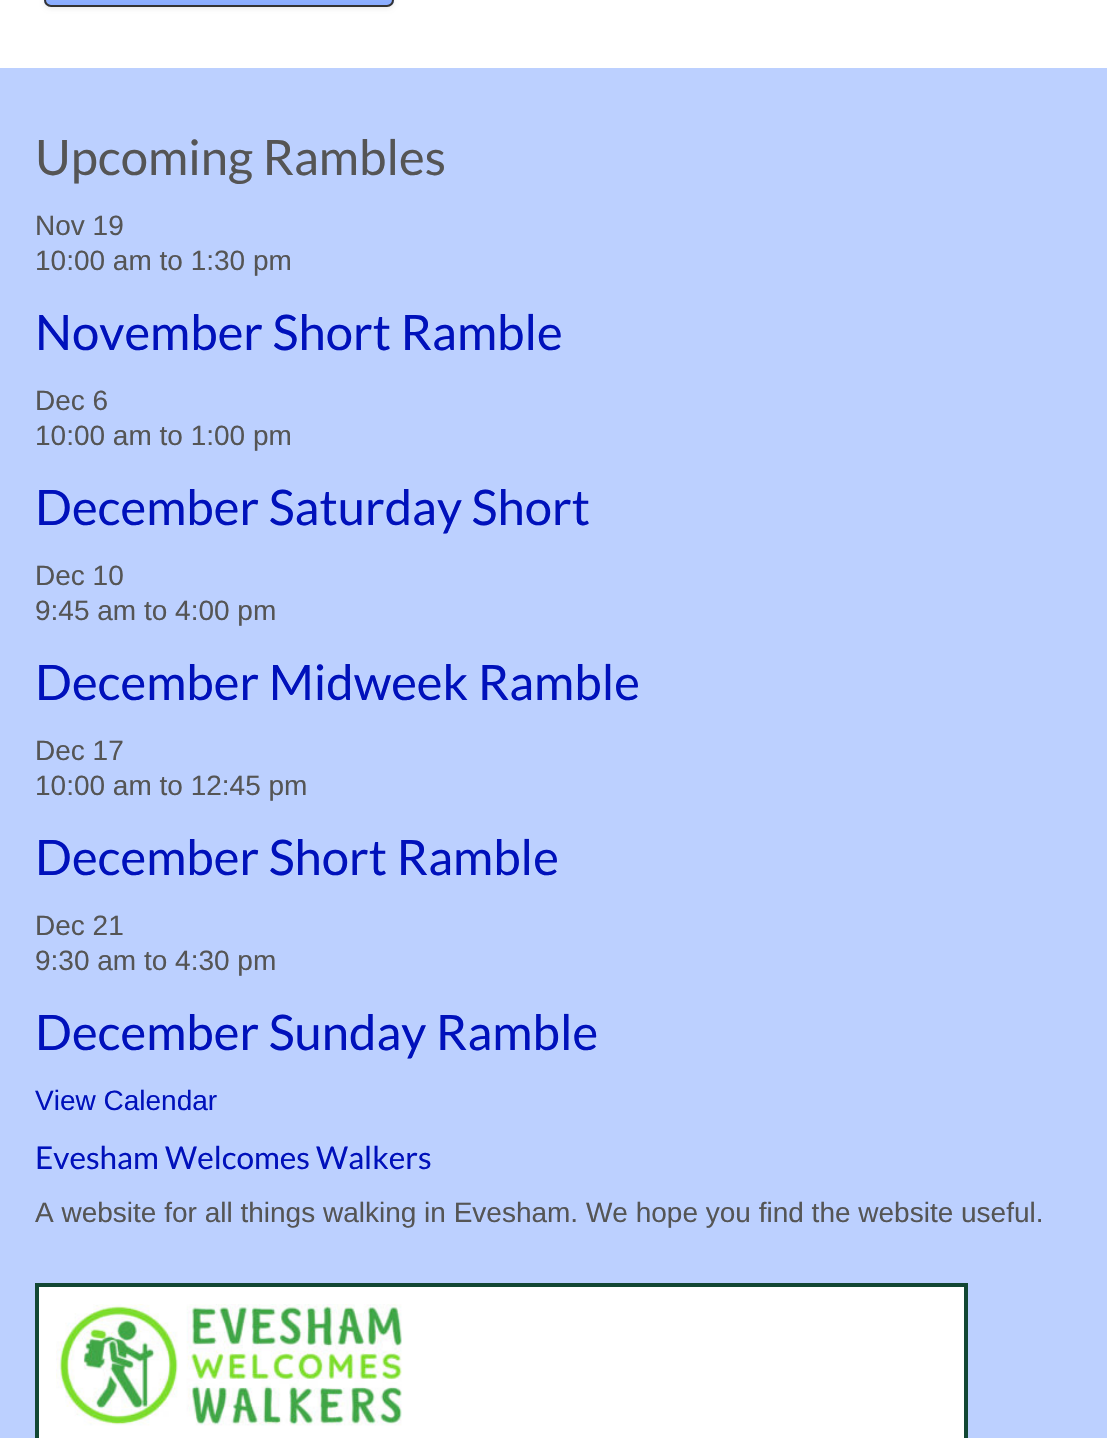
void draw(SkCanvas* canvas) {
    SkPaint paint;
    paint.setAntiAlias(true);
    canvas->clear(0xFFFFFFFF);
    paint.setColor(0x12000000);
    paint.setMaskFilter(SkMaskFilter::MakeBlur(kNormal_SkBlurStyle, 2));
    canvas->drawRoundRect(SkRect::MakeXYWH(44, -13, 350, 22), 7, 7, paint);
    paint.setMaskFilter(nullptr);
    canvas->save();
    canvas->clipPath(SkPathBuilder().moveTo(51, -52).lineTo(387, -52).cubicTo(391, -52, 394, -49, 394, -45).lineTo(394, 0).cubicTo(394, 4, 391, 7, 387, 7).lineTo(51, 7).cubicTo(47, 7, 44, 4, 44, 0).lineTo(44, -45).cubicTo(44, -49, 47, -52, 51, -52).close().detach(), true);
    {
        const SkColor colors[] = {0xFF89ACFF, 0xFFBCD0FF};
        const float stops[] = {0, 1};
        const SkPoint ends[] = {{46, 5.2f}, {46, -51}};
        paint.setShader(SkGradientShader::MakeLinear(ends, colors, stops, 2, SkTileMode::kClamp));
        paint.setAlpha(255);
    }
    canvas->drawRect(SkRect::MakeXYWH(44, 0, 350, 5), paint);
    canvas->restore();
    paint.setStyle(SkPaint::kStroke_Style);
    paint.setStrokeWidth(2);
    paint.setShader(nullptr);
    paint.setColor(0xFF333333);
    canvas->drawRoundRect(SkRect::MakeXYWH(45, -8, 348, 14), 6, 6, paint);
    paint.setStyle(SkPaint::kFill_Style);
    paint.setColor(0xFFBCD0FF);
    canvas->drawRect(SkRect::MakeXYWH(0, 68, 1107, 1370), paint);
    SkFont font1(fontMgr->matchFamilyStyle("Lato", SkFontStyle::Normal()), 49);
    font1.setSubpixel(true);
    paint.setColor(0xFF555555);
    canvas->drawString("Upcoming Rambles", 35, 175, font1, paint);
    SkFont font2(fontMgr->matchFamilyStyle("Liberation Sans", SkFontStyle::Normal()), 28);
    font2.setSubpixel(true);
    canvas->drawString("Nov 19", 35, 235, font2, paint);
    canvas->drawString("10:00 am to 1:30 pm", 35, 270, font2, paint);
    paint.setColor(0xFF0011BB);
    canvas->drawString("November Short Ramble", 35, 350, font1, paint);
    paint.setColor(0xFF555555);
    canvas->drawString("Dec 6", 35, 410, font2, paint);
    canvas->drawString("10:00 am to 1:00 pm", 35, 445, font2, paint);
    paint.setColor(0xFF0011BB);
    canvas->drawString("December Saturday Short", 35, 525, font1, paint);
    paint.setColor(0xFF555555);
    canvas->drawString("Dec 10", 35, 585, font2, paint);
    canvas->drawString("9:45 am to 4:00 pm", 35, 620, font2, paint);
    paint.setColor(0xFF0011BB);
    canvas->drawString("December Midweek Ramble", 35, 700, font1, paint);
    paint.setColor(0xFF555555);
    canvas->drawString("Dec 17", 35, 760, font2, paint);
    canvas->drawString("10:00 am to 12:45 pm", 35, 795, font2, paint);
    paint.setColor(0xFF0011BB);
    canvas->drawString("December Short Ramble", 35, 875, font1, paint);
    paint.setColor(0xFF555555);
    canvas->drawString("Dec 21", 35, 935, font2, paint);
    canvas->drawString("9:30 am to 4:30 pm", 35, 970, font2, paint);
    paint.setColor(0xFF0011BB);
    canvas->drawString("December Sunday Ramble", 35, 1050, font1, paint);
    canvas->drawString("View Calendar", 35, 1110, font2, paint);
    SkFont font3(fontMgr->matchFamilyStyle("Lato", SkFontStyle::Normal()), 31.5f);
    font3.setSubpixel(true);
    canvas->drawString("Evesham Welcomes Walkers", 35, 1169, font3, paint);
    paint.setColor(0xFF555555);
    canvas->drawString("A website for all things walking in Evesham. We hope you find the website useful.", 35, 1222, font2, paint);
    paint.setColor(0xFFFFFFFF);
    canvas->drawRect(SkRect::MakeXYWH(37, 1285, 929, 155), paint);
    paint.setStyle(SkPaint::kStroke_Style);
    paint.setStrokeWidth(4);
    paint.setColor(0xFF124734);
    canvas->drawRect(SkRect::MakeXYWH(37, 1285, 929, 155), paint);
    canvas->drawImageRect(SkImages::DeferredFromEncodedData(SkData::MakeFromFileName("img1.png")), SkRect::MakeXYWH(56, 1304, 346, 122), SkSamplingOptions());
}
